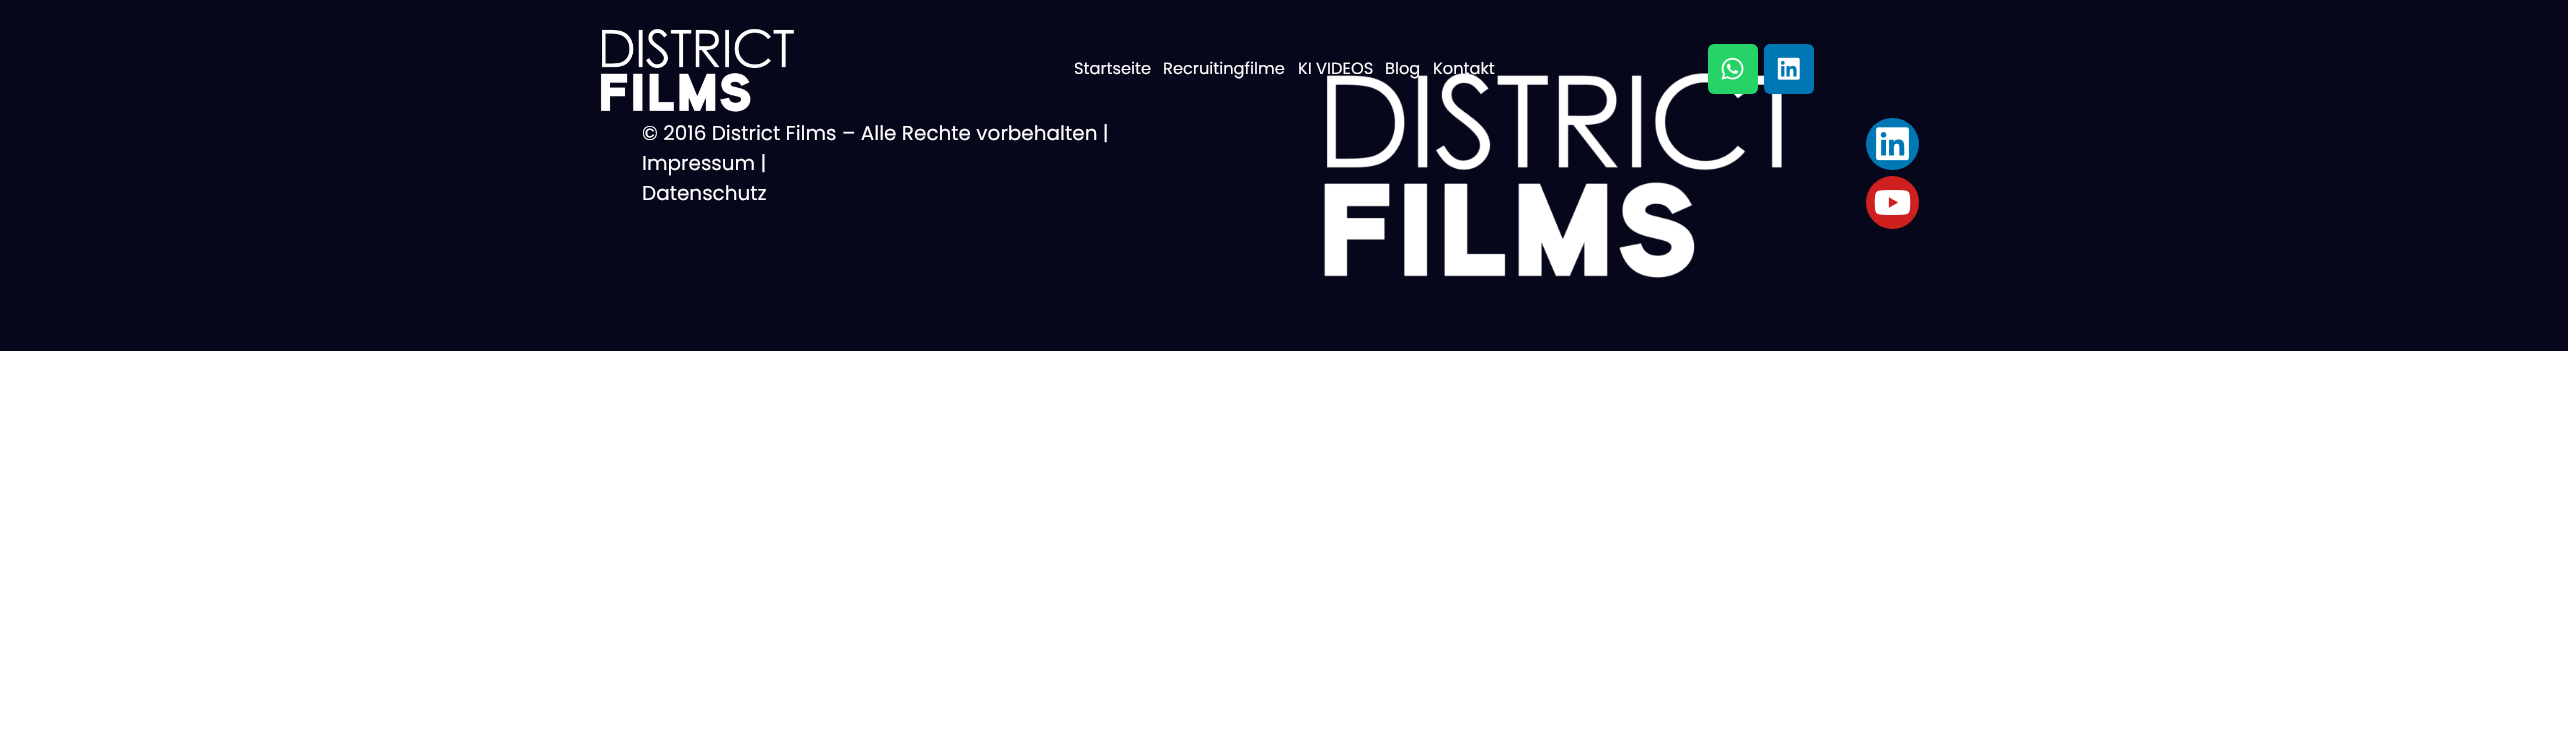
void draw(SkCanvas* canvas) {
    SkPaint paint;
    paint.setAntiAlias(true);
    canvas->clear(0xFFFFFFFF);
    paint.setColor(0xFF07071C);
    canvas->drawRect(SkRect::MakeXYWH(0, 0, 2568, 351), paint);
    canvas->drawImageRect(SkImages::DeferredFromEncodedData(SkData::MakeFromFileName("img1.png")), SkRect::MakeXYWH(600, 29, 194, 83), SkSamplingOptions());
    SkFont font1(fontMgr->matchFamilyStyle("Poppins", SkFontStyle::Normal()), 16.25f);
    font1.setSubpixel(true);
    paint.setColor(0xFFFFFFFF);
    canvas->drawString("Startseite", 1074, 74, font1, paint);
    canvas->drawString("Recruitingfilme", 1163, 74, font1, paint);
    canvas->drawImageRect(SkImages::DeferredFromEncodedData(SkData::MakeFromFileName("img4.png")), SkRect::MakeXYWH(1324, 73, 458, 205), SkSamplingOptions());
    canvas->drawString("KI VIDEOS", 1298, 74, font1, paint);
    canvas->drawString("Blog", 1385, 74, font1, paint);
    canvas->drawString("Kontakt", 1433, 74, font1, paint);
    paint.setColor(0xFF25D366);
    canvas->drawRoundRect(SkRect::MakeXYWH(1708, 44, 50, 50), 6, 6, paint);
    canvas->drawImageRect(SkImages::DeferredFromEncodedData(SkData::MakeFromFileName("img2.png")), SkRect::MakeXYWH(1721, 57, 23, 23), SkSamplingOptions());
    paint.setColor(0xFF0077B5);
    canvas->drawRoundRect(SkRect::MakeXYWH(1764, 44, 50, 50), 6, 6, paint);
    canvas->drawImageRect(SkImages::DeferredFromEncodedData(SkData::MakeFromFileName("img3.png")), SkRect::MakeXYWH(1777, 57, 23, 23), SkSamplingOptions());
    SkFont font2(fontMgr->matchFamilyStyle("Poppins", SkFontStyle::Normal()), 20);
    font2.setSubpixel(true);
    paint.setColor(0xFFFFFFFF);
    canvas->drawString("© 2016 District Films – Alle Rechte vorbehalten |", 642, 140, font2, paint);
    canvas->drawString("Impressum |", 642, 170, font2, paint);
    canvas->drawString("Datenschutz", 642, 200, font2, paint);
    paint.setColor(0xFF0077B5);
    canvas->drawRoundRect(SkRect::MakeXYWH(1866, 118, 53, 52), 26, 26, paint);
    canvas->drawImageRect(SkImages::DeferredFromEncodedData(SkData::MakeFromFileName("img5.png")), SkRect::MakeXYWH(1876, 127, 33, 34), SkSamplingOptions());
    paint.setColor(0xFFCD201F);
    canvas->drawCircle(1892.5f, 202.5f, 26.5f, paint);
    canvas->drawImageRect(SkImages::DeferredFromEncodedData(SkData::MakeFromFileName("img6.png")), SkRect::MakeXYWH(1874, 190, 37, 25), SkSamplingOptions());
}
